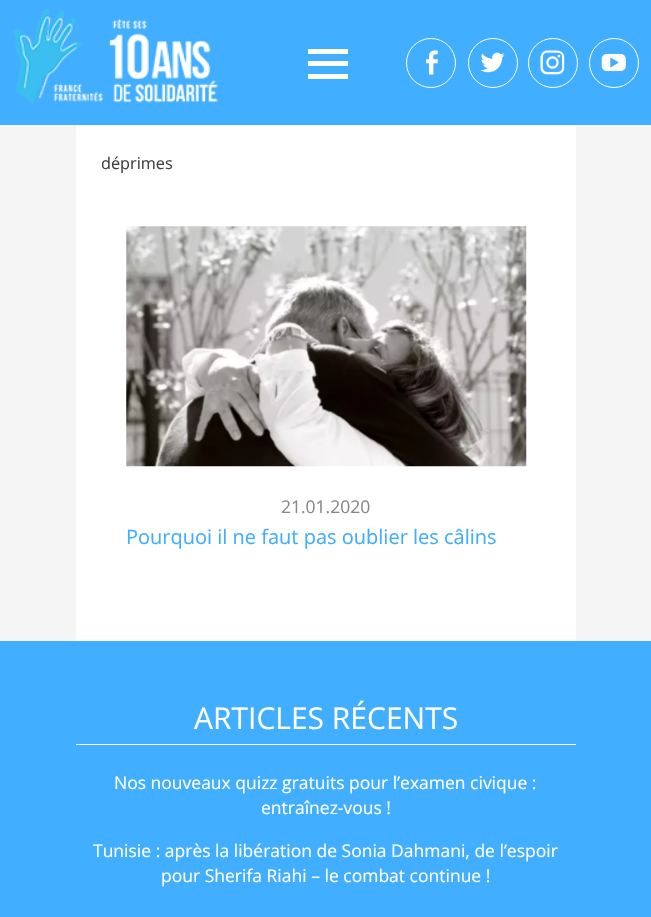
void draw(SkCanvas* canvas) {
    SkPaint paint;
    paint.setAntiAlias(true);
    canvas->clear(0xFFF5F5F5);
    paint.setColor(0xFF41AEFF);
    canvas->drawRect(SkRect::MakeXYWH(0, 0, 651, 125), paint);
    canvas->drawImageRect(SkImages::DeferredFromEncodedData(SkData::MakeFromFileName("img1.png")), SkRect::MakeXYWH(12, 8, 206, 97), SkSamplingOptions());
    paint.setColor(0xFFFFFFFF);
    canvas->drawPath(SkPathBuilder().moveTo(308, 79).lineTo(308, 74).lineTo(348, 74).lineTo(348, 79).close().moveTo(308, 49).lineTo(348, 49).lineTo(348, 54).lineTo(308, 54).close().moveTo(308, 66).lineTo(308, 61).lineTo(348, 61).lineTo(348, 66).close().detach(), paint);
    paint.setStyle(SkPaint::kStroke_Style);
    paint.setStrokeWidth(1);
    canvas->drawCircle(431, 63, 24.5f, paint);
    canvas->drawImageRect(SkImages::DeferredFromEncodedData(SkData::MakeFromFileName("img2.png")), SkRect::MakeXYWH(426, 50, 12, 25), SkSamplingOptions());
    canvas->drawCircle(493, 63, 24.5f, paint);
    canvas->drawImageRect(SkImages::DeferredFromEncodedData(SkData::MakeFromFileName("img3.png")), SkRect::MakeXYWH(480, 52, 25, 21), SkSamplingOptions());
    canvas->drawCircle(553, 63, 24.5f, paint);
    canvas->drawImageRect(SkImages::DeferredFromEncodedData(SkData::MakeFromFileName("img4.png")), SkRect::MakeXYWH(540, 50, 25, 25), SkSamplingOptions());
    canvas->drawCircle(614, 63, 24.5f, paint);
    canvas->drawImageRect(SkImages::DeferredFromEncodedData(SkData::MakeFromFileName("img5.png")), SkRect::MakeXYWH(601, 53, 25, 19), SkSamplingOptions());
    paint.setStyle(SkPaint::kFill_Style);
    canvas->drawRect(SkRect::MakeXYWH(76, 125, 500, 516), paint);
    SkFont font1(fontMgr->matchFamilyStyle("Open Sans", SkFontStyle::Normal()), 16.25f);
    font1.setSubpixel(true);
    paint.setColor(0xFF404040);
    canvas->drawString("déprimes", 101, 169, font1, paint);
    canvas->drawImageRect(SkImages::DeferredFromEncodedData(SkData::MakeFromFileName("img6.png")), SkRect::MakeXYWH(126, 226, 401, 241), SkSamplingOptions());
    SkFont font2(fontMgr->matchFamilyStyle("Open Sans", SkFontStyle::Normal()), 17.5f);
    font2.setSubpixel(true);
    paint.setColor(0xFF888888);
    canvas->drawString("21.01.2020", 281, 513, font2, paint);
    SkFont font3(fontMgr->matchFamilyStyle("Open Sans", SkFontStyle::Normal()), 20);
    font3.setSubpixel(true);
    paint.setColor(0xFF41AEFF);
    canvas->drawString("Pourquoi il ne faut pas oublier les câlins", 126, 544, font3, paint);
    canvas->drawRect(SkRect::MakeXYWH(0, 641, 651, 276), paint);
    paint.setColor(0xFFFFFFFF);
    canvas->drawRect(SkRect::MakeXYWH(76, 744, 500, 1), paint);
    SkFont font4(fontMgr->matchFamilyStyle("Open Sans", SkFontStyle::Normal()), 30);
    font4.setSubpixel(true);
    canvas->drawString("ARTICLES RÉCENTS", 194, 729, font4, paint);
    canvas->drawString("Nos nouveaux quizz gratuits pour l’examen civique :", 114, 789, font2, paint);
    canvas->drawString("entraînez-vous !", 261, 814, font2, paint);
    canvas->drawString("Tunisie : après la libération de Sonia Dahmani, de l’espoir", 93, 857, font2, paint);
    canvas->drawString("pour Sherifa Riahi – le combat continue !", 161, 882, font2, paint);
}
